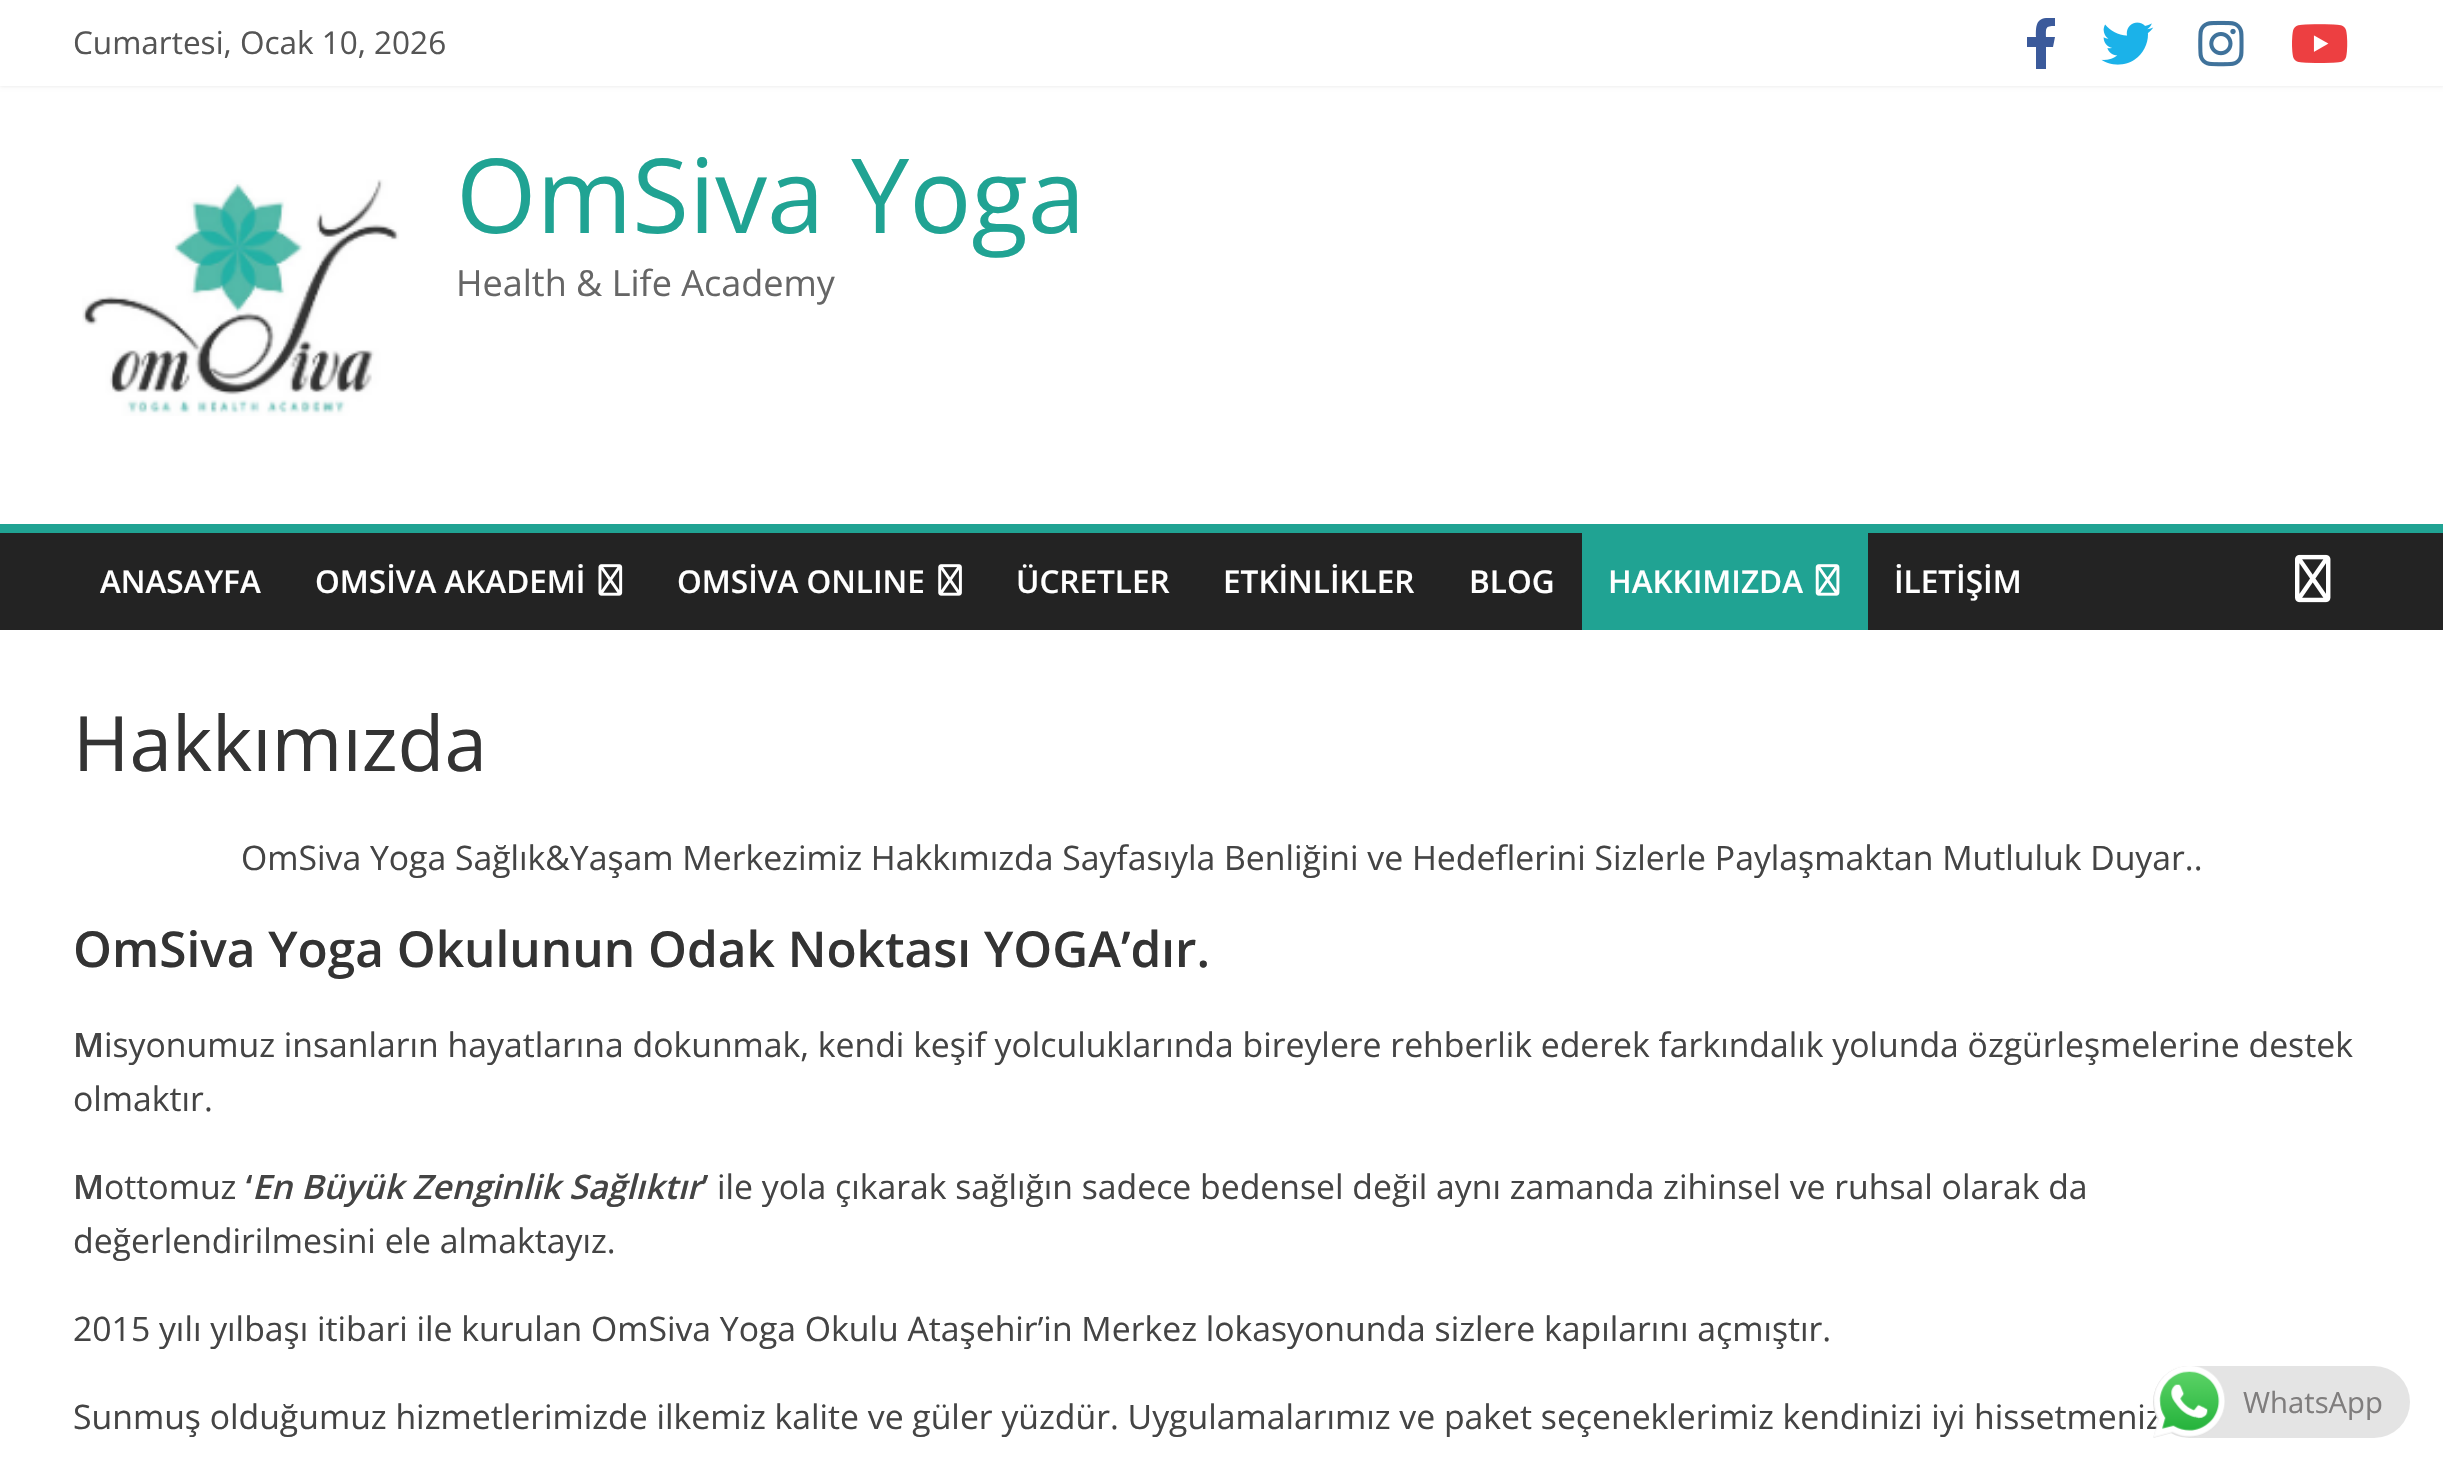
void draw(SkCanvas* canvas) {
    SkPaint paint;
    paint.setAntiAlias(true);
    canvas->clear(0xFFFFFFFF);
    paint.setColor(0x1A000000);
    paint.setMaskFilter(SkMaskFilter::MakeBlur(kNormal_SkBlurStyle, 2));
    canvas->drawRect(SkRect::MakeXYWH(0, 0, 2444, 86), paint);
    paint.setMaskFilter(nullptr);
    paint.setColor(0xFFFFFFFF);
    canvas->drawRect(SkRect::MakeXYWH(0, 0, 2443, 86), paint);
    SkFont font1(fontMgr->matchFamilyStyle("Open Sans", SkFontStyle::Normal()), 31.5f);
    font1.setSubpixel(true);
    paint.setColor(0xFF555555);
    canvas->drawString("Cumartesi, Ocak 10, 2026", 73, 54, font1, paint);
    paint.setColor(0xFF3B5A9B);
    canvas->drawPath(SkPathBuilder().moveTo(2053, 47).lineTo(2055, 37).lineTo(2046, 37).cubicTo(2046, 28, 2045, 26, 2055, 26).lineTo(2055, 18).lineTo(2046, 18).cubicTo(2035, 19, 2036, 29, 2036, 37).lineTo(2027, 37).lineTo(2027, 47).lineTo(2036, 47).lineTo(2036, 69).lineTo(2046, 69).lineTo(2046, 47).close().detach(), paint);
    canvas->drawImageRect(SkImages::DeferredFromEncodedData(SkData::MakeFromFileName("img1.png")), SkRect::MakeXYWH(2101, 22, 53, 43), SkSamplingOptions());
    canvas->drawImageRect(SkImages::DeferredFromEncodedData(SkData::MakeFromFileName("img2.png")), SkRect::MakeXYWH(2198, 20, 46, 47), SkSamplingOptions());
    canvas->drawImageRect(SkImages::DeferredFromEncodedData(SkData::MakeFromFileName("img3.png")), SkRect::MakeXYWH(2292, 24, 56, 39), SkSamplingOptions());
    canvas->drawImageRect(SkImages::DeferredFromEncodedData(SkData::MakeFromFileName("img4.png")), SkRect::MakeXYWH(82, 179, 317, 237), SkSamplingOptions());
    SkFont font2(fontMgr->matchFamilyStyle("Open Sans", SkFontStyle::Normal()), 103.5f);
    font2.setSubpixel(true);
    paint.setColor(0xFF20A393);
    canvas->drawString("OmSiva Yoga", 456, 233, font2, paint);
    SkFont font3(fontMgr->matchFamilyStyle("Open Sans", SkFontStyle::Normal()), 36);
    font3.setSubpixel(true);
    paint.setColor(0xFF666666);
    canvas->drawString("Health & Life Academy", 456, 296, font3, paint);
    paint.setColor(0xFF232323);
    canvas->drawRect(SkRect::MakeXYWH(0, 533, 2443, 97), paint);
    paint.setColor(0xFF20A393);
    canvas->drawRect(SkRect::MakeXYWH(0, 524, 2443, 9), paint);
    SkFont font4(fontMgr->matchFamilyStyle("Open Sans", SkFontStyle(600, SkFontStyle::kNormal_Width, SkFontStyle::kUpright_Slant)), 31.5f);
    font4.setSubpixel(true);
    paint.setColor(0xFFFFFFFF);
    canvas->drawString("ANASAYFA", 100, 593, font4, paint);
    canvas->drawString("OMSİVA AKADEMİ", 315, 593, font4, paint);
    canvas->drawImageRect(SkImages::DeferredFromEncodedData(SkData::MakeFromFileName("img5.png")), SkRect::MakeXYWH(598, 564, 25, 32), SkSamplingOptions());
    canvas->drawString("OMSİVA ONLINE", 677, 593, font4, paint);
    canvas->drawImageRect(SkImages::DeferredFromEncodedData(SkData::MakeFromFileName("img6.png")), SkRect::MakeXYWH(938, 564, 24, 32), SkSamplingOptions());
    canvas->drawString("ÜCRETLER", 1016, 593, font4, paint);
    canvas->drawString("ETKİNLİKLER", 1223, 593, font4, paint);
    canvas->drawString("BLOG", 1469, 593, font4, paint);
    paint.setColor(0xFF20A393);
    canvas->drawRect(SkRect::MakeXYWH(1582, 533, 286, 97), paint);
    paint.setColor(0xFFFFFFFF);
    canvas->drawString("HAKKIMIZDA", 1608, 593, font4, paint);
    canvas->drawImageRect(SkImages::DeferredFromEncodedData(SkData::MakeFromFileName("img7.png")), SkRect::MakeXYWH(1815, 564, 25, 32), SkSamplingOptions());
    canvas->drawString("İLETİŞİM", 1894, 593, font4, paint);
    canvas->drawImageRect(SkImages::DeferredFromEncodedData(SkData::MakeFromFileName("img8.png")), SkRect::MakeXYWH(2295, 554, 36, 49), SkSamplingOptions());
    SkFont font5(fontMgr->matchFamilyStyle("Open Sans", SkFontStyle::Normal()), 76.5f);
    font5.setSubpixel(true);
    paint.setColor(0xFF333333);
    canvas->drawString("Hakkımızda", 73, 771, font5, paint);
    SkFont font6(fontMgr->matchFamilyStyle("Open Sans", SkFontStyle::Normal()), 33.75f);
    font6.setSubpixel(true);
    paint.setColor(0xFF444444);
    canvas->drawString("OmSiva Yoga Sağlık&Yaşam Merkezimiz Hakkımızda Sayfasıyla Benliğini ve Hedeflerini Sizlerle Paylaşmaktan Mutluluk Duyar..", 241, 870, font6, paint);
    SkFont font7(fontMgr->matchFamilyStyle("Open Sans", SkFontStyle(600, SkFontStyle::kNormal_Width, SkFontStyle::kUpright_Slant)), 49.5f);
    font7.setSubpixel(true);
    paint.setColor(0xFF333333);
    canvas->drawString("OmSiva Yoga Okulunun Odak Noktası YOGA’dır.", 73, 967, font7, paint);
    SkFont font8(fontMgr->matchFamilyStyle("Open Sans", SkFontStyle(600, SkFontStyle::kNormal_Width, SkFontStyle::kUpright_Slant)), 33.75f);
    font8.setSubpixel(true);
    paint.setColor(0xFF444444);
    canvas->drawString("M", 73, 1057, font8, paint);
    canvas->drawString("isyonumuz insanların hayatlarına dokunmak, kendi keşif yolculuklarında bireylere rehberlik ederek farkındalık yolunda özgürleşmelerine destek", 104, 1057, font6, paint);
    canvas->drawString("olmaktır.", 73, 1111, font6, paint);
    canvas->drawString("M", 73, 1199, font8, paint);
    canvas->drawString("‘", 246, 1199, font8, paint);
    SkFont font9(fontMgr->matchFamilyStyle("Open Sans", SkFontStyle(600, SkFontStyle::kNormal_Width, SkFontStyle::kItalic_Slant)), 33.75f);
    font9.setSubpixel(true);
    canvas->drawString("En Büyük Zenginlik Sağlıktır", 252, 1199, font9, paint);
    canvas->drawString("ile yola çıkarak sağlığın sadece bedensel değil aynı zamanda zihinsel ve ruhsal olarak da", 717, 1199, font6, paint);
    canvas->drawString("ottomuz", 104, 1199, font6, paint);
    canvas->drawString("’", 702, 1199, font8, paint);
    canvas->drawString("değerlendirilmesini ele almaktayız.", 73, 1253, font6, paint);
    canvas->drawString("2015 yılı yılbaşı itibari ile kurulan OmSiva Yoga Okulu Ataşehir’in Merkez lokasyonunda sizlere kapılarını açmıştır.", 73, 1341, font6, paint);
    canvas->drawString("Sunmuş olduğumuz hizmetlerimizde ilkemiz kalite ve güler yüzdür. Uygulamalarımız ve paket seçeneklerimiz kendinizi iyi hissetmeniz", 73, 1429, font6, paint);
    paint.setColor(0xFFE4E4E4);
    canvas->drawRoundRect(SkRect::MakeXYWH(2153, 1366, 257, 72), 36, 36, paint);
    canvas->drawImageRect(SkImages::DeferredFromEncodedData(SkData::MakeFromFileName("img9.png")), SkRect::MakeXYWH(2153, 1366, 72, 72), SkSamplingOptions());
    SkFont font10(fontMgr->matchFamilyStyle("Open Sans", SkFontStyle::Normal()), 29.25f);
    font10.setSubpixel(true);
    paint.setColor(0xFF7F7D7D);
    canvas->drawString("WhatsApp", 2243, 1413, font10, paint);
}
